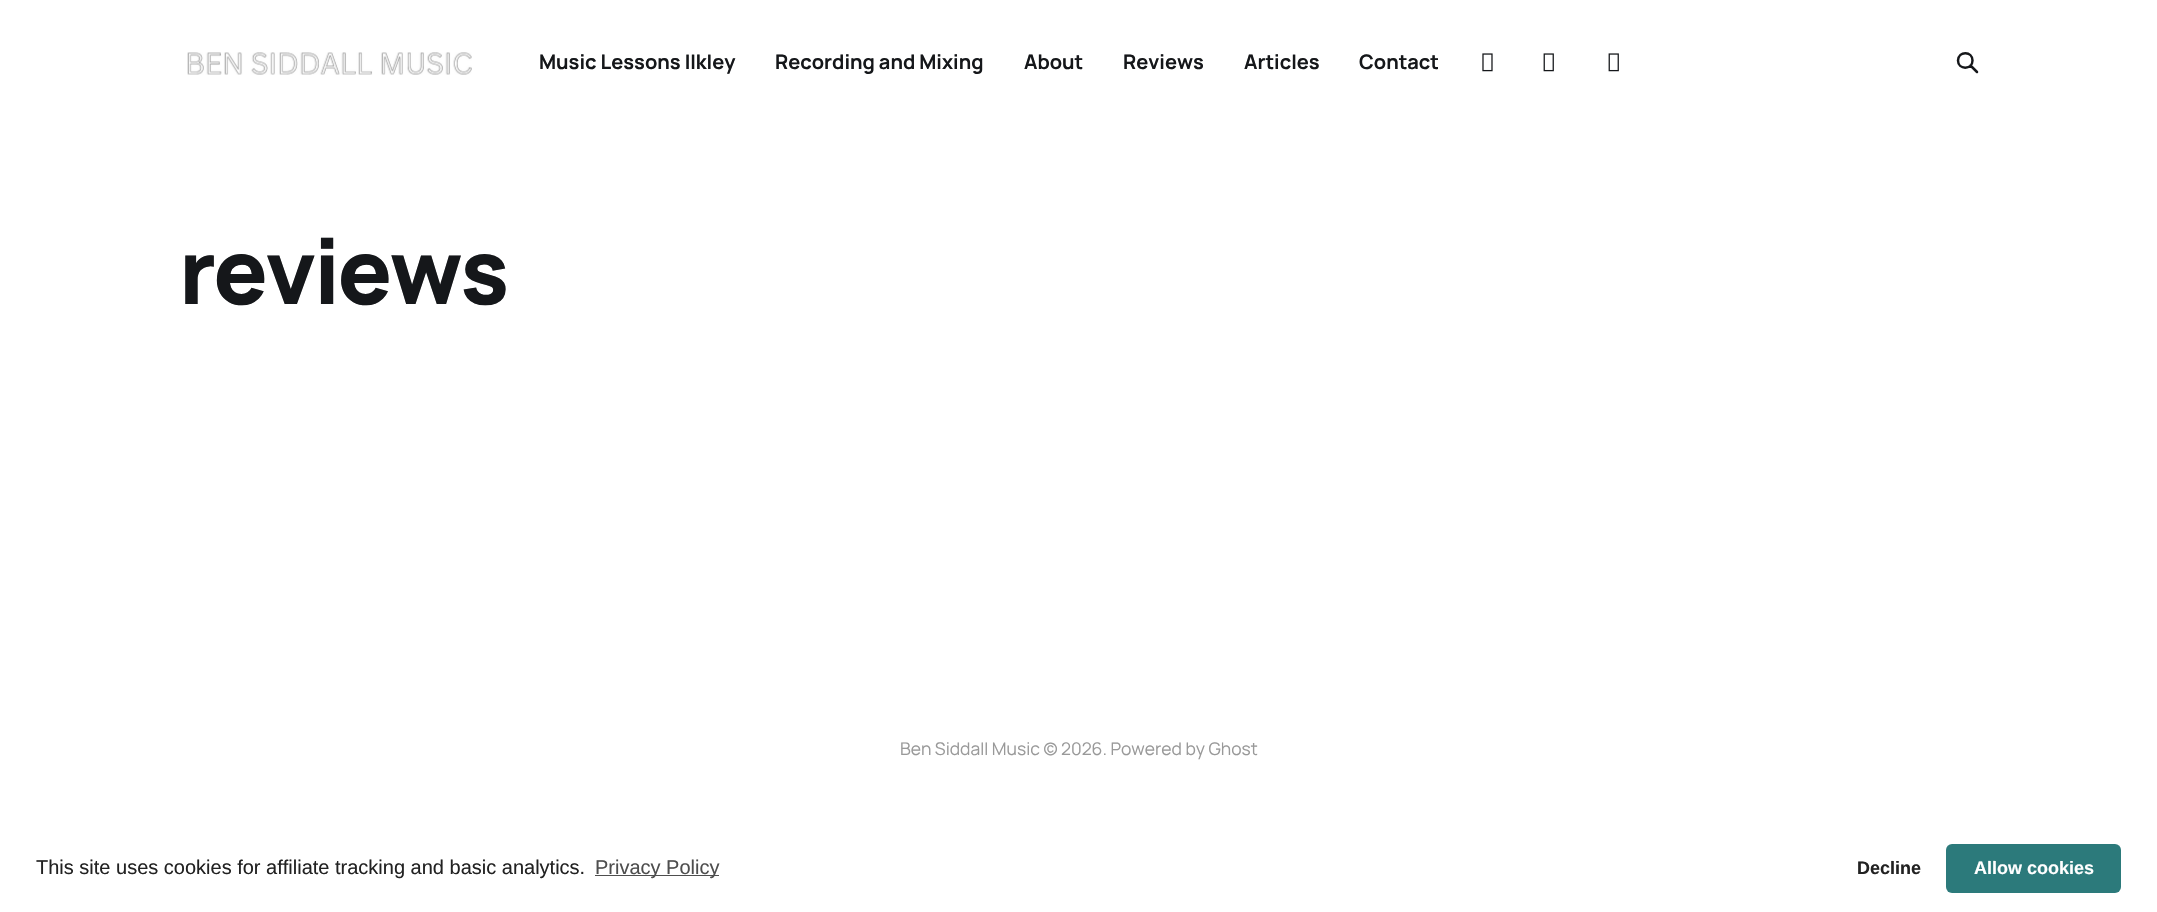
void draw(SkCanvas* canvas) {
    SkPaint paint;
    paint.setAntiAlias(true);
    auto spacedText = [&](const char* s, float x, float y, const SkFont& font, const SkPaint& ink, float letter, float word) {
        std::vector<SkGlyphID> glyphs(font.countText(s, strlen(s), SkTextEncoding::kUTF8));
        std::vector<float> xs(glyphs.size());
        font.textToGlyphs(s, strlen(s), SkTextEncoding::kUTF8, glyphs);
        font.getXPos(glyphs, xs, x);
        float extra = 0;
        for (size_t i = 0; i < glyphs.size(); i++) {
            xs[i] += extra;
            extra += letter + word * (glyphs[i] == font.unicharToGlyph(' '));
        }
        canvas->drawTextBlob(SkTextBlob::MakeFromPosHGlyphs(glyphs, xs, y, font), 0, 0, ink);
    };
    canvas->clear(0xFFFFFFFF);
    canvas->drawImageRect(SkImages::DeferredFromEncodedData(SkData::MakeFromFileName("img1.png")), SkRect::MakeXYWH(187, 52, 285, 23), SkSamplingOptions());
    SkFont font1(fontMgr->matchFamilyStyle("Manrope", SkFontStyle::Bold()), 20);
    font1.setSubpixel(true);
    paint.setColor(0xFF15171A);
    canvas->drawString("Music Lessons Ilkley", 539, 69, font1, paint);
    canvas->drawString("Recording and Mixing", 775, 69, font1, paint);
    canvas->drawString("About", 1024, 69, font1, paint);
    canvas->drawString("Reviews", 1123, 69, font1, paint);
    canvas->drawString("Articles", 1244, 69, font1, paint);
    canvas->drawString("Contact", 1359, 69, font1, paint);
    canvas->drawImageRect(SkImages::DeferredFromEncodedData(SkData::MakeFromFileName("img2.png")), SkRect::MakeXYWH(1482, 53, 11, 19), SkSamplingOptions());
    canvas->drawImageRect(SkImages::DeferredFromEncodedData(SkData::MakeFromFileName("img3.png")), SkRect::MakeXYWH(1543, 53, 11, 19), SkSamplingOptions());
    canvas->drawImageRect(SkImages::DeferredFromEncodedData(SkData::MakeFromFileName("img3.png")), SkRect::MakeXYWH(1608, 53, 11, 19), SkSamplingOptions());
    paint.setStyle(SkPaint::kStroke_Style);
    paint.setStrokeWidth(2.5f);
    paint.setStrokeCap(SkPaint::kRound_Cap);
    paint.setStrokeJoin(SkPaint::kRound_Join);
    canvas->drawPath(SkPathBuilder().moveTo(1977, 72).lineTo(1970.5f, 65.5f).close().moveTo(1972.5f, 60.5f).cubicTo(1972.5f, 70, 1958, 70, 1958, 60.5f).cubicTo(1958.5f, 50.5f, 1972.5f, 51, 1972.5f, 60.5f).close().detach(), paint);
    SkFont font2(fontMgr->matchFamilyStyle("Manrope", SkFontStyle(800, SkFontStyle::kNormal_Width, SkFontStyle::kUpright_Slant)), 90);
    font2.setSubpixel(true);
    paint.setStyle(SkPaint::kFill_Style);
    spacedText("reviews", 179, 304, font2, paint, -2.75f, 0);
    SkFont font3(fontMgr->matchFamilyStyle("Manrope", SkFontStyle::Normal()), 17.5f);
    font3.setSubpixel(true);
    paint.setColor(0xFF999999);
    canvas->drawString("Ben Siddall Music © 2026. Powered by Ghost", 900, 755, font3, paint);
    SkFont font4(fontMgr->matchFamilyStyle("Liberation Sans", SkFontStyle::Normal()), 20);
    font4.setSubpixel(true);
    paint.setColor(0xFF222222);
    canvas->drawString("This site uses cookies for affiliate tracking and basic analytics.", 36, 874, font4, paint);
    paint.setColor(0xFF4E4E4E);
    canvas->drawRect(SkRect::MakeXYWH(595, 875, 124, 1), paint);
    canvas->drawString("Privacy Policy", 595, 874, font4, paint);
    SkFont font5(fontMgr->matchFamilyStyle("Liberation Sans", SkFontStyle::Bold()), 18);
    font5.setSubpixel(true);
    paint.setColor(0xFF222222);
    canvas->drawString("Decline", 1857, 874, font5, paint);
    paint.setColor(0xFF2C7A7B);
    canvas->drawRoundRect(SkRect::MakeXYWH(1946, 844, 175, 49), 6, 6, paint);
    paint.setColor(0xFFFFFFFF);
    canvas->drawString("Allow cookies", 1974, 874, font5, paint);
}
